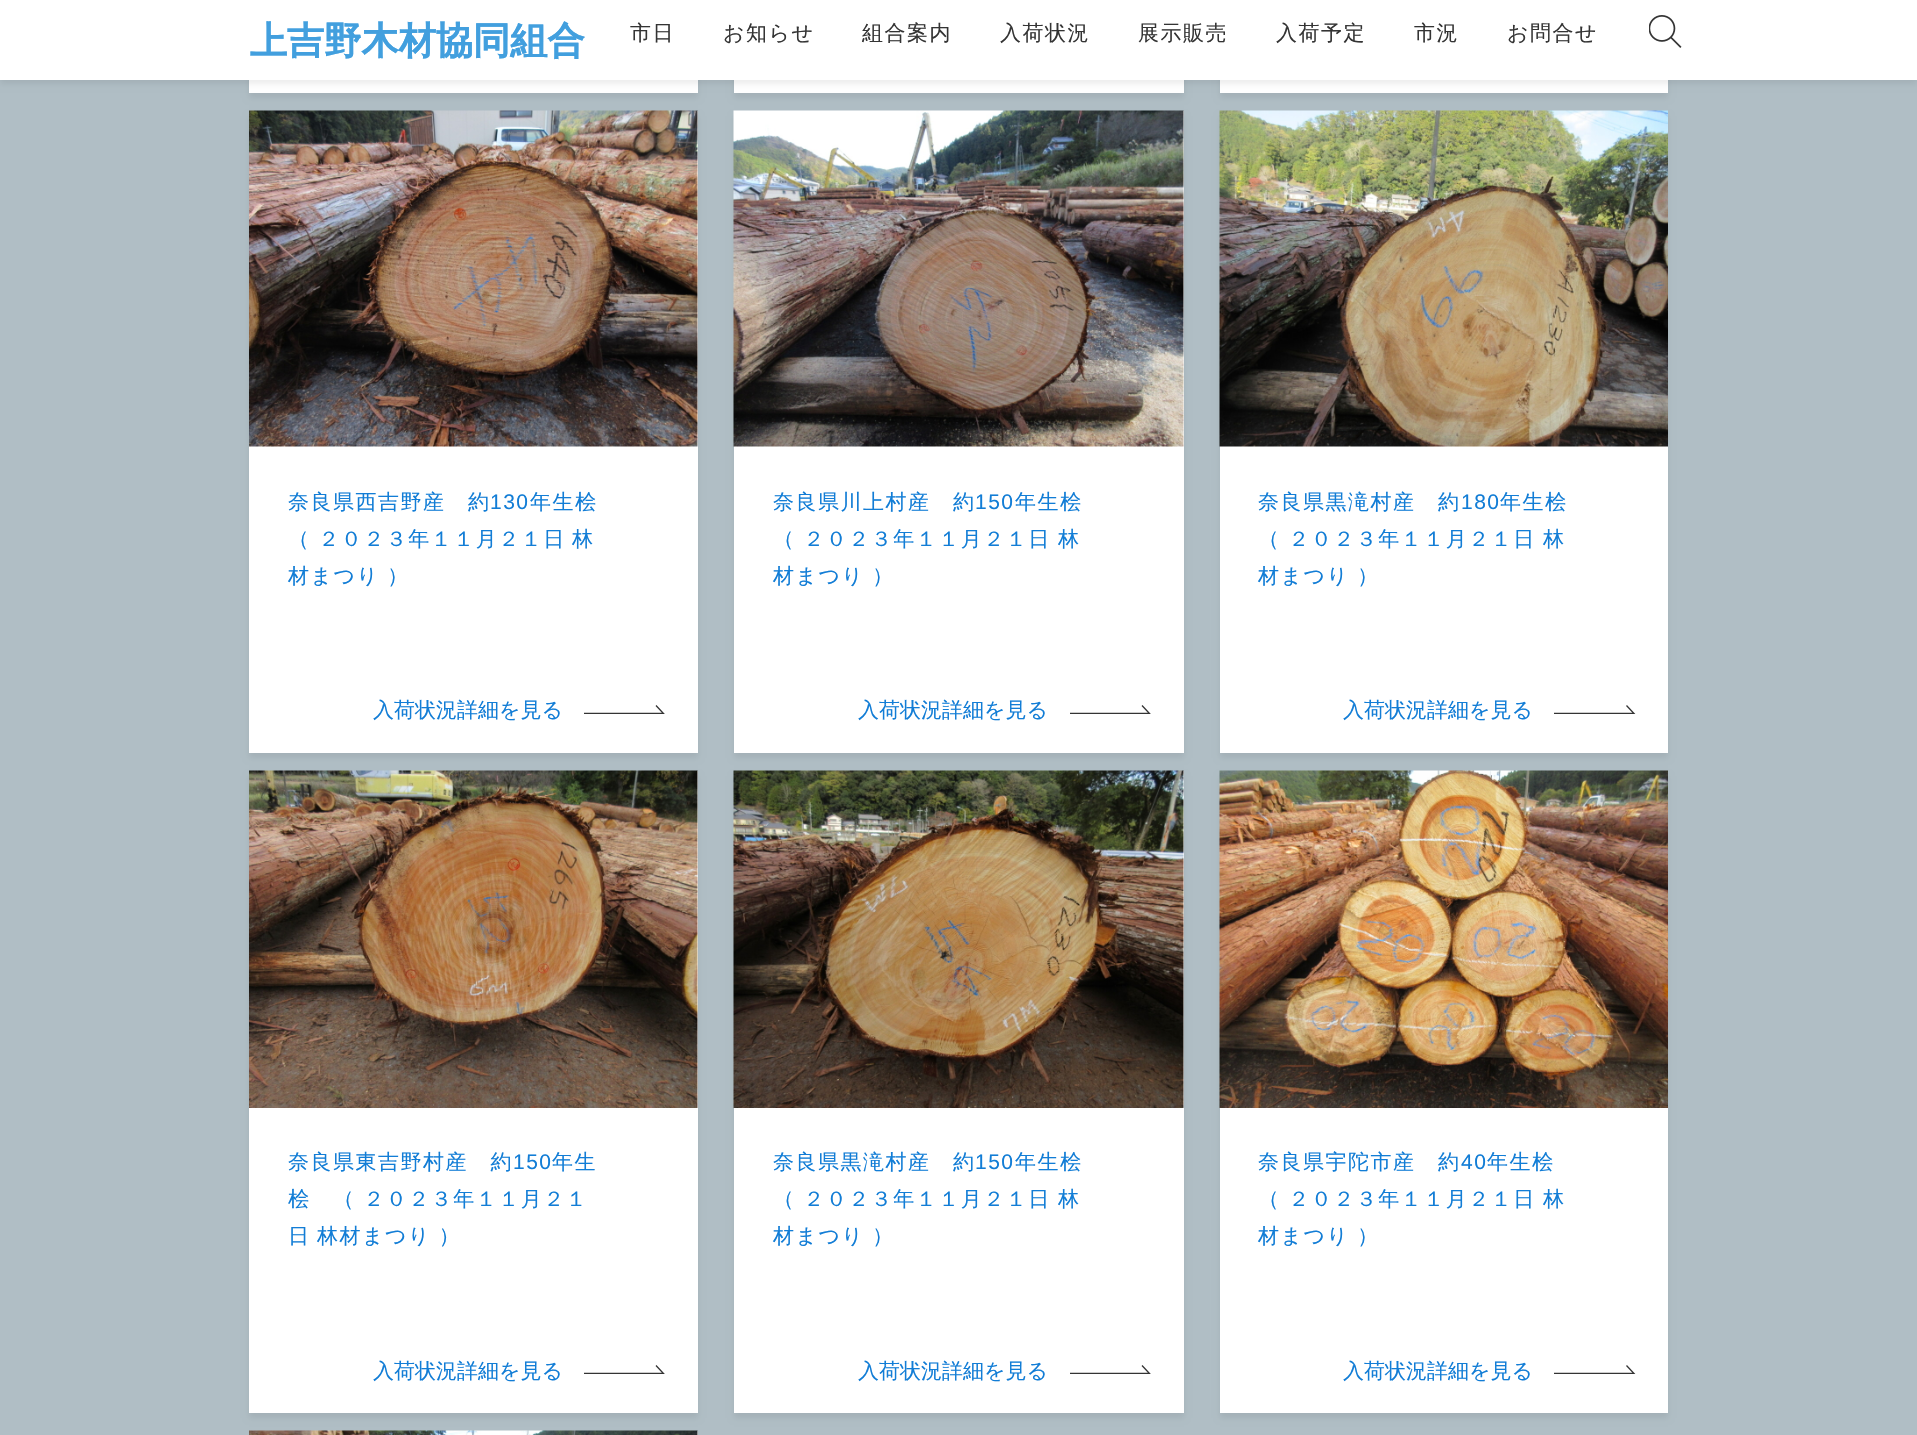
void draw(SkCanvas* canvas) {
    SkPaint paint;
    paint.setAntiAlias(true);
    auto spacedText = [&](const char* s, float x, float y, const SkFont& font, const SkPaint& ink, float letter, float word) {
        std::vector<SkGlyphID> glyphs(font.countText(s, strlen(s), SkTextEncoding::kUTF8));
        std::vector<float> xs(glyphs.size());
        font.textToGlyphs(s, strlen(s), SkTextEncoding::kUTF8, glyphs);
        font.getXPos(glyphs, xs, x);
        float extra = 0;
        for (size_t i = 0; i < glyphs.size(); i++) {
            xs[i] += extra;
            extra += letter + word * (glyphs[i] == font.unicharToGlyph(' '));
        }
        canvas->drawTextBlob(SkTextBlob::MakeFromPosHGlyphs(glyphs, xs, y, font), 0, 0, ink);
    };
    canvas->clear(0xFFB0BEC5);
    paint.setColor(0x12000000);
    paint.setMaskFilter(SkMaskFilter::MakeBlur(kNormal_SkBlurStyle, 3));
    canvas->drawRect(SkRect::MakeXYWH(249, -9, 449, 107), paint);
    paint.setMaskFilter(nullptr);
    paint.setColor(0xFFFFFFFF);
    canvas->drawRect(SkRect::MakeXYWH(249, 80, 449, 13), paint);
    paint.setColor(0x12000000);
    paint.setMaskFilter(SkMaskFilter::MakeBlur(kNormal_SkBlurStyle, 3));
    canvas->drawRect(SkRect::MakeXYWH(734, -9, 450, 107), paint);
    paint.setMaskFilter(nullptr);
    paint.setColor(0xFFFFFFFF);
    canvas->drawRect(SkRect::MakeXYWH(734, 80, 450, 13), paint);
    paint.setColor(0x12000000);
    paint.setMaskFilter(SkMaskFilter::MakeBlur(kNormal_SkBlurStyle, 3));
    canvas->drawRect(SkRect::MakeXYWH(1220, -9, 448, 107), paint);
    paint.setMaskFilter(nullptr);
    paint.setColor(0xFFFFFFFF);
    canvas->drawRect(SkRect::MakeXYWH(1220, 80, 448, 13), paint);
    paint.setColor(0x12000000);
    paint.setMaskFilter(SkMaskFilter::MakeBlur(kNormal_SkBlurStyle, 3));
    canvas->drawRect(SkRect::MakeXYWH(0, 5, 1917, 79), paint);
    paint.setMaskFilter(nullptr);
    paint.setColor(0xFFFFFFFF);
    canvas->drawRect(SkRect::MakeXYWH(0, 0, 1917, 80), paint);
    canvas->drawImageRect(SkImages::DeferredFromEncodedData(SkData::MakeFromFileName("img1.png")), SkRect::MakeXYWH(250, 21, 335, 39), SkSamplingOptions());
    SkFont font1(fontMgr->matchFamilyStyle("WenQuanYi Zen Hei", SkFontStyle(500, SkFontStyle::kNormal_Width, SkFontStyle::kUpright_Slant)), 21);
    font1.setSubpixel(true);
    paint.setColor(0xFF343434);
    spacedText("市日", 630, 40, font1, paint, 1.5f, 0);
    spacedText("お知らせ", 723, 40, font1, paint, 1.5f, 0);
    spacedText("組合案内", 862, 40, font1, paint, 1.5f, 0);
    spacedText("入荷状況", 1000, 40, font1, paint, 1.5f, 0);
    spacedText("展示販売", 1138, 40, font1, paint, 1.5f, 0);
    spacedText("入荷予定", 1276, 40, font1, paint, 1.5f, 0);
    spacedText("市況", 1414, 40, font1, paint, 1.5f, 0);
    spacedText("お問合せ", 1507, 40, font1, paint, 1.5f, 0);
    canvas->drawImageRect(SkImages::DeferredFromEncodedData(SkData::MakeFromFileName("img2.png")), SkRect::MakeXYWH(1649, 15, 33, 33), SkSamplingOptions());
    paint.setColor(0x12000000);
    paint.setMaskFilter(SkMaskFilter::MakeBlur(kNormal_SkBlurStyle, 3));
    canvas->drawRect(SkRect::MakeXYWH(249, 116, 449, 642), paint);
    paint.setMaskFilter(nullptr);
    paint.setColor(0xFFFFFFFF);
    canvas->drawRect(SkRect::MakeXYWH(249, 111, 449, 642), paint);
    canvas->drawImageRect(SkImages::DeferredFromEncodedData(SkData::MakeFromFileName("img3.png")), SkRect::MakeXYWH(249, 110, 449, 337), SkSamplingOptions());
    paint.setColor(0xFF127DD6);
    spacedText("奈良県西吉野産　約", 288, 509, font1, paint, 1.5f, 0);
    SkFont font2(fontMgr->matchFamilyStyle("Liberation Sans", SkFontStyle::Normal()), 21);
    font2.setSubpixel(true);
    spacedText("130", 490, 509, font2, paint, 1.5f, 0);
    spacedText("年生桧", 530, 509, font1, paint, 1.5f, 0);
    spacedText("（ ２０２３年１１月２１日", 288, 546, font1, paint, 1.5f, 0);
    spacedText("林", 572, 546, font1, paint, 1.5f, 0);
    spacedText("材まつり ）", 288, 583, font1, paint, 1.5f, 0);
    canvas->drawString("入荷状況詳細を見る", 373, 717, font1, paint);
    canvas->save();
    canvas->clipRect(SkRect::MakeXYWH(584, 705, 82, 9));
    paint.setStyle(SkPaint::kStroke_Style);
    paint.setStrokeWidth(1.3f);
    paint.setColor(0xFF343434);
    canvas->drawPath(SkPathBuilder().moveTo(583.5f, 713.5f).lineTo(663.5f, 713.5f).lineTo(656, 705.5f).detach(), paint);
    canvas->restore();
    paint.setStyle(SkPaint::kFill_Style);
    paint.setColor(0x12000000);
    paint.setMaskFilter(SkMaskFilter::MakeBlur(kNormal_SkBlurStyle, 3));
    canvas->drawRect(SkRect::MakeXYWH(734, 116, 450, 642), paint);
    paint.setMaskFilter(nullptr);
    paint.setColor(0xFFFFFFFF);
    canvas->drawRect(SkRect::MakeXYWH(734, 111, 450, 642), paint);
    canvas->drawImageRect(SkImages::DeferredFromEncodedData(SkData::MakeFromFileName("img4.png")), SkRect::MakeXYWH(733, 110, 451, 337), SkSamplingOptions());
    paint.setColor(0xFF127DD6);
    spacedText("奈良県川上村産　約", 773, 509, font1, paint, 1.5f, 0);
    spacedText("150", 975, 509, font2, paint, 1.5f, 0);
    spacedText("年生桧", 1015, 509, font1, paint, 1.5f, 0);
    spacedText("（ ２０２３年１１月２１日", 773, 546, font1, paint, 1.5f, 0);
    spacedText("林", 1058, 546, font1, paint, 1.5f, 0);
    spacedText("材まつり ）", 773, 583, font1, paint, 1.5f, 0);
    canvas->drawString("入荷状況詳細を見る", 858, 717, font1, paint);
    canvas->save();
    canvas->clipRect(SkRect::MakeXYWH(1070, 705, 81, 9));
    paint.setStyle(SkPaint::kStroke_Style);
    paint.setColor(0xFF343434);
    canvas->drawPath(SkPathBuilder().moveTo(1069.5f, 713.5f).lineTo(1149.5f, 713.5f).lineTo(1142, 705.5f).detach(), paint);
    canvas->restore();
    paint.setStyle(SkPaint::kFill_Style);
    paint.setColor(0x12000000);
    paint.setMaskFilter(SkMaskFilter::MakeBlur(kNormal_SkBlurStyle, 3));
    canvas->drawRect(SkRect::MakeXYWH(1220, 116, 448, 642), paint);
    paint.setMaskFilter(nullptr);
    paint.setColor(0xFFFFFFFF);
    canvas->drawRect(SkRect::MakeXYWH(1220, 446, 448, 307), paint);
    canvas->drawImageRect(SkImages::DeferredFromEncodedData(SkData::MakeFromFileName("img5.png")), SkRect::MakeXYWH(1219, 110, 449, 337), SkSamplingOptions());
    paint.setColor(0xFF127DD6);
    spacedText("奈良県黒滝村産　約", 1258, 509, font1, paint, 1.5f, 0);
    spacedText("180", 1461, 509, font2, paint, 1.5f, 0);
    spacedText("年生桧", 1500, 509, font1, paint, 1.5f, 0);
    spacedText("（ ２０２３年１１月２１日", 1258, 546, font1, paint, 1.5f, 0);
    spacedText("林", 1543, 546, font1, paint, 1.5f, 0);
    spacedText("材まつり ）", 1258, 583, font1, paint, 1.5f, 0);
    canvas->drawString("入荷状況詳細を見る", 1343, 717, font1, paint);
    canvas->save();
    canvas->clipRect(SkRect::MakeXYWH(1554, 705, 83, 9));
    paint.setStyle(SkPaint::kStroke_Style);
    paint.setColor(0xFF343434);
    canvas->drawPath(SkPathBuilder().moveTo(1554, 713.5f).lineTo(1634, 713.5f).lineTo(1626.5f, 705.5f).detach(), paint);
    canvas->restore();
    paint.setStyle(SkPaint::kFill_Style);
    paint.setColor(0x12000000);
    paint.setMaskFilter(SkMaskFilter::MakeBlur(kNormal_SkBlurStyle, 3));
    canvas->drawRect(SkRect::MakeXYWH(249, 776, 449, 642), paint);
    paint.setMaskFilter(nullptr);
    paint.setColor(0xFFFFFFFF);
    canvas->drawRect(SkRect::MakeXYWH(249, 771, 449, 642), paint);
    canvas->drawImageRect(SkImages::DeferredFromEncodedData(SkData::MakeFromFileName("img6.png")), SkRect::MakeXYWH(249, 770, 449, 338), SkSamplingOptions());
    paint.setColor(0xFF127DD6);
    spacedText("奈良県東吉野村産　約", 288, 1169, font1, paint, 1.5f, 0);
    spacedText("150", 513, 1169, font2, paint, 1.5f, 0);
    spacedText("年生", 552, 1169, font1, paint, 1.5f, 0);
    spacedText("桧　（ ２０２３年１１月２１", 288, 1206, font1, paint, 1.5f, 0);
    spacedText("日", 288, 1243, font1, paint, 1.5f, 0);
    spacedText("林材まつり ）", 317, 1243, font1, paint, 1.5f, 0);
    canvas->drawString("入荷状況詳細を見る", 373, 1378, font1, paint);
    canvas->save();
    canvas->clipRect(SkRect::MakeXYWH(584, 1365, 82, 9));
    paint.setStyle(SkPaint::kStroke_Style);
    paint.setColor(0xFF343434);
    canvas->drawPath(SkPathBuilder().moveTo(583.5f, 1373.5f).lineTo(663.5f, 1373.5f).lineTo(656, 1365.5f).detach(), paint);
    canvas->restore();
    paint.setStyle(SkPaint::kFill_Style);
    paint.setColor(0x12000000);
    paint.setMaskFilter(SkMaskFilter::MakeBlur(kNormal_SkBlurStyle, 3));
    canvas->drawRect(SkRect::MakeXYWH(734, 776, 450, 642), paint);
    paint.setMaskFilter(nullptr);
    paint.setColor(0xFFFFFFFF);
    canvas->drawRect(SkRect::MakeXYWH(734, 771, 450, 642), paint);
    canvas->drawImageRect(SkImages::DeferredFromEncodedData(SkData::MakeFromFileName("img7.png")), SkRect::MakeXYWH(733, 770, 451, 338), SkSamplingOptions());
    paint.setColor(0xFF127DD6);
    spacedText("奈良県黒滝村産　約", 773, 1169, font1, paint, 1.5f, 0);
    spacedText("150", 975, 1169, font2, paint, 1.5f, 0);
    spacedText("年生桧", 1015, 1169, font1, paint, 1.5f, 0);
    spacedText("（ ２０２３年１１月２１日", 773, 1206, font1, paint, 1.5f, 0);
    spacedText("林", 1058, 1206, font1, paint, 1.5f, 0);
    spacedText("材まつり ）", 773, 1243, font1, paint, 1.5f, 0);
    canvas->drawString("入荷状況詳細を見る", 858, 1378, font1, paint);
    canvas->save();
    canvas->clipRect(SkRect::MakeXYWH(1070, 1365, 81, 9));
    paint.setStyle(SkPaint::kStroke_Style);
    paint.setColor(0xFF343434);
    canvas->drawPath(SkPathBuilder().moveTo(1069.5f, 1373.5f).lineTo(1149.5f, 1373.5f).lineTo(1142, 1365.5f).detach(), paint);
    canvas->restore();
    paint.setStyle(SkPaint::kFill_Style);
    paint.setColor(0x12000000);
    paint.setMaskFilter(SkMaskFilter::MakeBlur(kNormal_SkBlurStyle, 3));
    canvas->drawRect(SkRect::MakeXYWH(1220, 776, 448, 642), paint);
    paint.setMaskFilter(nullptr);
    paint.setColor(0xFFFFFFFF);
    canvas->drawRect(SkRect::MakeXYWH(1220, 1108, 448, 305), paint);
    canvas->drawImageRect(SkImages::DeferredFromEncodedData(SkData::MakeFromFileName("img8.png")), SkRect::MakeXYWH(1219, 770, 449, 338), SkSamplingOptions());
    paint.setColor(0xFF127DD6);
    spacedText("奈良県宇陀市産　約", 1258, 1169, font1, paint, 1.5f, 0);
    spacedText("40", 1461, 1169, font2, paint, 1.5f, 0);
    spacedText("年生桧", 1487, 1169, font1, paint, 1.5f, 0);
    spacedText("（ ２０２３年１１月２１日", 1258, 1206, font1, paint, 1.5f, 0);
    spacedText("林", 1543, 1206, font1, paint, 1.5f, 0);
    spacedText("材まつり ）", 1258, 1243, font1, paint, 1.5f, 0);
    canvas->drawString("入荷状況詳細を見る", 1343, 1378, font1, paint);
    canvas->save();
    canvas->clipRect(SkRect::MakeXYWH(1554, 1365, 83, 9));
    paint.setStyle(SkPaint::kStroke_Style);
    paint.setColor(0xFF343434);
    canvas->drawPath(SkPathBuilder().moveTo(1554, 1373.5f).lineTo(1634, 1373.5f).lineTo(1626.5f, 1365.5f).detach(), paint);
    canvas->restore();
    paint.setStyle(SkPaint::kFill_Style);
    paint.setColor(0xFFFFFFFF);
    canvas->drawRect(SkRect::MakeXYWH(697, 1431, 1, 4), paint);
    canvas->drawImageRect(SkImages::DeferredFromEncodedData(SkData::MakeFromFileName("img9.png")), SkRect::MakeXYWH(249, 1430, 449, 5), SkSamplingOptions());
}
